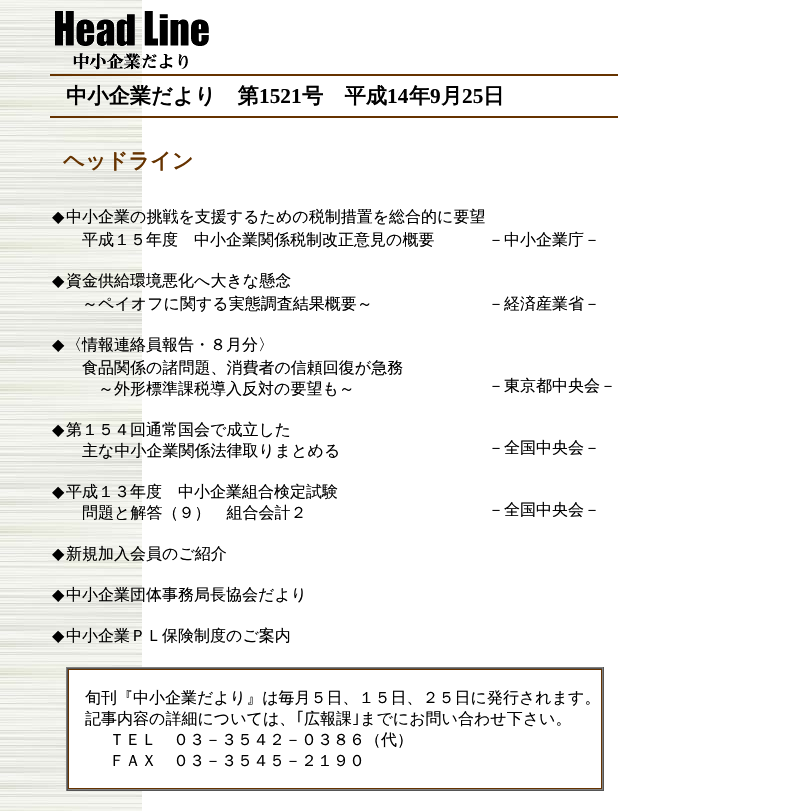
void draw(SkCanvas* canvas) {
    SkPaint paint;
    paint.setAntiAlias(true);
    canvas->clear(0xFFFFFFFF);
    canvas->drawImageRect(SkImages::DeferredFromEncodedData(SkData::MakeFromFileName("img1.png")), SkRect::MakeXYWH(0, 0, 142, 811), SkSamplingOptions());
    canvas->drawImageRect(SkImages::DeferredFromEncodedData(SkData::MakeFromFileName("img2.png")), SkRect::MakeXYWH(55, 11, 154, 59), SkSamplingOptions());
    paint.setColor(0xFF663300);
    canvas->drawRect(SkRect::MakeXYWH(50, 74, 568, 2), paint);
    canvas->drawRect(SkRect::MakeXYWH(50, 116, 568, 2), paint);
    SkFont font1(fontMgr->matchFamilyStyle("WenQuanYi Zen Hei", SkFontStyle::Bold()), 21.25f);
    font1.setSubpixel(true);
    paint.setColor(0xFF000000);
    canvas->drawString("中小企業だより　第", 66, 103, font1, paint);
    SkFont font2(fontMgr->matchFamilyStyle("Liberation Serif", SkFontStyle::Bold()), 21.25f);
    font2.setSubpixel(true);
    canvas->drawString("1521", 259, 103, font2, paint);
    canvas->drawString("号　平成", 302, 103, font1, paint);
    canvas->drawString("14", 387, 103, font2, paint);
    canvas->drawString("年", 409, 103, font1, paint);
    canvas->drawString("9", 430, 103, font2, paint);
    canvas->drawString("月", 441, 103, font1, paint);
    canvas->drawString("25", 462, 103, font2, paint);
    canvas->drawString("日", 483, 103, font1, paint);
    paint.setColor(0xFF663300);
    canvas->drawString("ヘッドライン", 63, 168, font1, paint);
    SkFont font3(fontMgr->matchFamilyStyle("DejaVu Sans", SkFontStyle::Normal()), 16);
    font3.setSubpixel(true);
    paint.setColor(0xFF000000);
    canvas->drawString("◆", 52, 222, font3, paint);
    SkFont font4(fontMgr->matchFamilyStyle("WenQuanYi Zen Hei", SkFontStyle(500, SkFontStyle::kNormal_Width, SkFontStyle::kUpright_Slant)), 16);
    font4.setSubpixel(true);
    canvas->drawString("中小企業の挑戦を支援するための税制措置を総合的に要望", 66, 222, font4, paint);
    canvas->drawString("平成１５年度　中小企業関係税制改正意見の概要", 82, 245, font4, paint);
    canvas->drawString("－中小企業庁－", 488, 245, font4, paint);
    canvas->drawString("◆", 52, 286, font3, paint);
    canvas->drawString("資金供給環境悪化へ大きな懸念", 66, 286, font4, paint);
    canvas->drawString("～ペイオフに関する実態調査結果概要～", 82, 309, font4, paint);
    canvas->drawString("－経済産業省－", 488, 309, font4, paint);
    canvas->drawString("◆", 52, 350, font3, paint);
    canvas->drawString("〈情報連絡員報告・８月分〉", 66, 350, font4, paint);
    canvas->drawString("食品関係の諸問題、消費者の信頼回復が急務", 82, 373, font4, paint);
    canvas->drawString("～外形標準課税導入反対の要望も～", 98, 394, font4, paint);
    canvas->drawString("－東京都中央会－", 488, 391, font4, paint);
    canvas->drawString("◆", 52, 435, font3, paint);
    canvas->drawString("第１５４回通常国会で成立した", 66, 435, font4, paint);
    canvas->drawString("主な中小企業関係法律取りまとめる", 82, 456, font4, paint);
    canvas->drawString("－全国中央会－", 488, 453, font4, paint);
    canvas->drawString("◆", 52, 497, font3, paint);
    canvas->drawString("平成１３年度　中小企業組合検定試験", 66, 497, font4, paint);
    canvas->drawString("問題と解答（９）　組合会計２", 82, 518, font4, paint);
    canvas->drawString("－全国中央会－", 488, 515, font4, paint);
    canvas->drawString("◆", 52, 559, font3, paint);
    canvas->drawString("新規加入会員のご紹介", 66, 559, font4, paint);
    canvas->drawString("◆", 52, 600, font3, paint);
    canvas->drawString("中小企業団体事務局長協会だより", 66, 600, font4, paint);
    canvas->drawString("◆", 52, 641, font3, paint);
    canvas->drawString("中小企業ＰＬ保険制度のご案内", 66, 641, font4, paint);
    paint.setColor(0xFF663300);
    canvas->drawRect(SkRect::MakeXYWH(68, 669, 534, 120), paint);
    paint.setColor(0xFF808080);
    canvas->drawRect(SkRect::MakeXYWH(66, 667, 538, 1), paint);
    paint.setColor(0xFF555555);
    canvas->drawRect(SkRect::MakeXYWH(603, 667, 1, 124), paint);
    canvas->drawRect(SkRect::MakeXYWH(66, 790, 538, 1), paint);
    paint.setColor(0xFF808080);
    canvas->drawRect(SkRect::MakeXYWH(66, 667, 1, 124), paint);
    paint.setColor(0xFF555555);
    canvas->drawRect(SkRect::MakeXYWH(67, 668, 536, 1), paint);
    paint.setColor(0xFF808080);
    canvas->drawRect(SkRect::MakeXYWH(602, 668, 1, 122), paint);
    canvas->drawRect(SkRect::MakeXYWH(67, 789, 536, 1), paint);
    paint.setColor(0xFF555555);
    canvas->drawRect(SkRect::MakeXYWH(67, 668, 1, 122), paint);
    paint.setColor(0xFFFFFFFF);
    canvas->drawRect(SkRect::MakeXYWH(69, 670, 532, 118), paint);
    paint.setColor(0xFF000000);
    canvas->drawString("旬刊『中小企業だより』は毎月５日、１５日、２５日に発行されます。", 85, 703, font4, paint);
    canvas->drawString("記事内容の詳細については、", 85, 724, font4, paint);
    SkFont font5(fontMgr->matchFamilyStyle("IPAGothic", SkFontStyle::Normal()), 16);
    font5.setSubpixel(true);
    canvas->drawString("｢", 296, 724, font5, paint);
    canvas->drawString("広報課", 304, 724, font4, paint);
    canvas->drawString("｣", 352, 724, font5, paint);
    canvas->drawString("までにお問い合わせ下さい。", 360, 724, font4, paint);
    canvas->drawString("ＴＥＬ　０３－３５４２－０３８６（代）", 109, 745, font4, paint);
    canvas->drawString("ＦＡＸ　０３－３５４５－２１９０", 109, 766, font4, paint);
}
